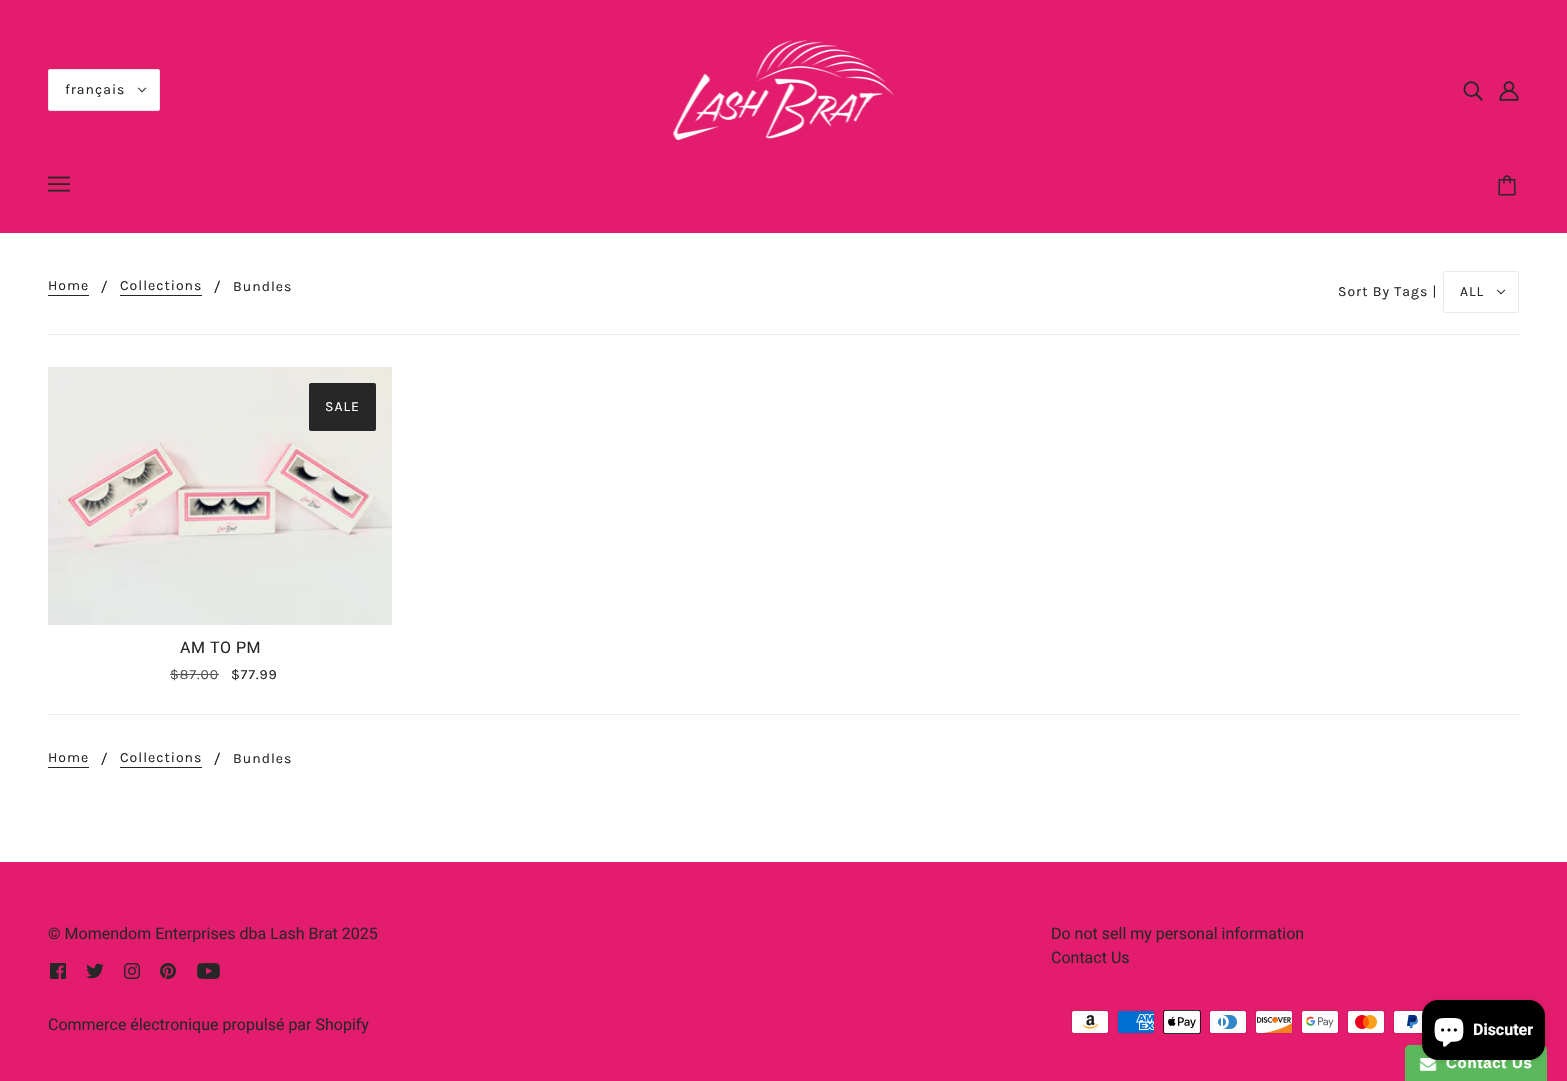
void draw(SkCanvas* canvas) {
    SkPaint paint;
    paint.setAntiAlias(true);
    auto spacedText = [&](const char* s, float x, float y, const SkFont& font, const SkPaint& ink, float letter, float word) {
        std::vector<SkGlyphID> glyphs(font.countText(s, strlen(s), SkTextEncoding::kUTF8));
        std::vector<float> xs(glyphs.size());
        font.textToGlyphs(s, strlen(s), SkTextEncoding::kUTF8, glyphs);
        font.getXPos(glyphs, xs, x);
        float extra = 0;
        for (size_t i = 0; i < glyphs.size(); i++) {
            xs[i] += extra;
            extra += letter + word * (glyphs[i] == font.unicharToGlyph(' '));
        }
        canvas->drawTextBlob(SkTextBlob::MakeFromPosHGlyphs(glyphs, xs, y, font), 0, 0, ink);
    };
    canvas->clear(0xFFFFFFFF);
    paint.setColor(0xFFE41C6D);
    canvas->drawRect(SkRect::MakeXYWH(0, 0, 1567, 233), paint);
    paint.setColor(0xFFFFFFFF);
    canvas->drawRoundRect(SkRect::MakeXYWH(48.5f, 69.5f, 111, 41), 1.5f, 1.5f, paint);
    paint.setStyle(SkPaint::kStroke_Style);
    paint.setStrokeWidth(1);
    paint.setColor(0xFFEBEBEB);
    canvas->drawRoundRect(SkRect::MakeXYWH(48.5f, 69.5f, 111, 41), 1.5f, 1.5f, paint);
    SkFont font1(fontMgr->matchFamilyStyle("Karla", SkFontStyle::Normal()), 14);
    font1.setSubpixel(true);
    paint.setStyle(SkPaint::kFill_Style);
    paint.setColor(0xFF272727);
    spacedText("français", 65, 94, font1, paint, 1, 0);
    canvas->drawImageRect(SkImages::DeferredFromEncodedData(SkData::MakeFromFileName("img1.png")), SkRect::MakeXYWH(137, 87, 10, 6), SkSamplingOptions());
    canvas->drawImageRect(SkImages::DeferredFromEncodedData(SkData::MakeFromFileName("img2.png")), SkRect::MakeXYWH(673, 40, 222, 100), SkSamplingOptions());
    canvas->drawImageRect(SkImages::DeferredFromEncodedData(SkData::MakeFromFileName("img3.png")), SkRect::MakeXYWH(1463, 81, 20, 20), SkSamplingOptions());
    canvas->drawImageRect(SkImages::DeferredFromEncodedData(SkData::MakeFromFileName("img4.png")), SkRect::MakeXYWH(1499, 81, 20, 20), SkSamplingOptions());
    canvas->drawImageRect(SkImages::DeferredFromEncodedData(SkData::MakeFromFileName("img5.png")), SkRect::MakeXYWH(48, 176, 22, 16), SkSamplingOptions());
    canvas->drawImageRect(SkImages::DeferredFromEncodedData(SkData::MakeFromFileName("img6.png")), SkRect::MakeXYWH(1498, 175, 18, 21), SkSamplingOptions());
    spacedText("Home", 48, 290, font1, paint, 1, 0);
    canvas->drawRect(SkRect::MakeXYWH(48, 295, 41, 1), paint);
    SkFont font2(fontMgr->matchFamilyStyle("Roboto", SkFontStyle::Normal()), 16);
    font2.setSubpixel(true);
    canvas->drawString("/", 101, 292, font2, paint);
    spacedText("Collections", 120, 290, font1, paint, 1, 0);
    canvas->drawRect(SkRect::MakeXYWH(120, 295, 82, 1), paint);
    canvas->drawString("/", 214, 292, font2, paint);
    spacedText("Bundles", 233, 291, font1, paint, 1, 0);
    spacedText("Sort By Tags |", 1338, 296, font1, paint, 1, 0);
    paint.setStyle(SkPaint::kStroke_Style);
    paint.setColor(0xFFEBEBEB);
    canvas->drawRoundRect(SkRect::MakeXYWH(1443.5f, 271.5f, 75, 41), 1.5f, 1.5f, paint);
    paint.setStyle(SkPaint::kFill_Style);
    paint.setColor(0xFF272727);
    spacedText("ALL", 1460, 296, font1, paint, 1, 0);
    canvas->drawImageRect(SkImages::DeferredFromEncodedData(SkData::MakeFromFileName("img1.png")), SkRect::MakeXYWH(1496, 289, 10, 6), SkSamplingOptions());
    paint.setColor(0xFFEBEBEB);
    canvas->drawRect(SkRect::MakeXYWH(48, 334, 1471, 1), paint);
    canvas->drawImageRect(SkImages::DeferredFromEncodedData(SkData::MakeFromFileName("img7.png")), SkRect::MakeXYWH(48, 367, 344, 258), SkSamplingOptions());
    paint.setColor(0xFF272727);
    canvas->drawRoundRect(SkRect::MakeXYWH(309, 383, 67, 48), 2, 2, paint);
    paint.setColor(0xFFFFFFFF);
    spacedText("SALE", 325, 411, font1, paint, 1, 0);
    paint.setColor(0xFF272727);
    spacedText("AM TO PM", 180, 653, font2, paint, 0.5f, 0);
    paint.setColor(0xFF575757);
    spacedText("$87.00", 170, 679, font1, paint, 1, 0);
    canvas->drawRect(SkRect::MakeXYWH(170, 674, 49, 1), paint);
    paint.setColor(0xFF272727);
    spacedText("$77.99", 231, 679, font1, paint, 1, 0);
    paint.setColor(0xFFEBEBEB);
    canvas->drawRect(SkRect::MakeXYWH(48, 714, 1471, 1), paint);
    paint.setColor(0xFF272727);
    spacedText("Home", 48, 762, font1, paint, 1, 0);
    canvas->drawRect(SkRect::MakeXYWH(48, 767, 41, 1), paint);
    canvas->drawString("/", 101, 764, font2, paint);
    spacedText("Collections", 120, 762, font1, paint, 1, 0);
    canvas->drawRect(SkRect::MakeXYWH(120, 767, 82, 1), paint);
    canvas->drawString("/", 214, 764, font2, paint);
    spacedText("Bundles", 233, 763, font1, paint, 1, 0);
    paint.setColor(0xFFE41C6D);
    canvas->drawRect(SkRect::MakeXYWH(0, 862, 1567, 219), paint);
    paint.setColor(0xFF272727);
    canvas->drawString("© Momendom Enterprises dba Lash Brat 2025", 48, 939, font2, paint);
    canvas->drawImageRect(SkImages::DeferredFromEncodedData(SkData::MakeFromFileName("img8.png")), SkRect::MakeXYWH(50, 963, 16, 16), SkSamplingOptions());
    canvas->drawImageRect(SkImages::DeferredFromEncodedData(SkData::MakeFromFileName("img9.png")), SkRect::MakeXYWH(86, 963, 18, 16), SkSamplingOptions());
    canvas->drawImageRect(SkImages::DeferredFromEncodedData(SkData::MakeFromFileName("img10.png")), SkRect::MakeXYWH(124, 963, 16, 16), SkSamplingOptions());
    canvas->drawImageRect(SkImages::DeferredFromEncodedData(SkData::MakeFromFileName("img11.png")), SkRect::MakeXYWH(160, 963, 16, 16), SkSamplingOptions());
    canvas->drawImageRect(SkImages::DeferredFromEncodedData(SkData::MakeFromFileName("img12.png")), SkRect::MakeXYWH(197, 963, 23, 16), SkSamplingOptions());
    canvas->drawString("Do not sell my personal information", 1051, 939, font2, paint);
    canvas->drawString("Contact Us", 1051, 963, font2, paint);
    canvas->drawString("Commerce électronique propulsé par Shopify", 48, 1030, font2, paint);
    canvas->drawImageRect(SkImages::DeferredFromEncodedData(SkData::MakeFromFileName("img13.png")), SkRect::MakeXYWH(1071, 1010, 38, 24), SkSamplingOptions());
    canvas->drawImageRect(SkImages::DeferredFromEncodedData(SkData::MakeFromFileName("img14.png")), SkRect::MakeXYWH(1117, 1010, 38, 24), SkSamplingOptions());
    canvas->drawImageRect(SkImages::DeferredFromEncodedData(SkData::MakeFromFileName("img15.png")), SkRect::MakeXYWH(1163, 1010, 38, 24), SkSamplingOptions());
    canvas->drawImageRect(SkImages::DeferredFromEncodedData(SkData::MakeFromFileName("img16.png")), SkRect::MakeXYWH(1209, 1010, 38, 24), SkSamplingOptions());
    canvas->drawImageRect(SkImages::DeferredFromEncodedData(SkData::MakeFromFileName("img17.png")), SkRect::MakeXYWH(1255, 1010, 38, 24), SkSamplingOptions());
    canvas->drawImageRect(SkImages::DeferredFromEncodedData(SkData::MakeFromFileName("img18.png")), SkRect::MakeXYWH(1301, 1010, 38, 24), SkSamplingOptions());
    canvas->drawImageRect(SkImages::DeferredFromEncodedData(SkData::MakeFromFileName("img19.png")), SkRect::MakeXYWH(1347, 1010, 38, 24), SkSamplingOptions());
    canvas->drawImageRect(SkImages::DeferredFromEncodedData(SkData::MakeFromFileName("img20.png")), SkRect::MakeXYWH(1393, 1010, 31, 24), SkSamplingOptions());
    paint.setColor(0xFF5CB85C);
    canvas->drawPath(SkPathBuilder().moveTo(1410, 1045).lineTo(1542, 1045).cubicTo(1545, 1045, 1547, 1047, 1547, 1050).lineTo(1547, 1081).lineTo(1405, 1081).lineTo(1405, 1050).cubicTo(1405, 1047, 1407, 1045, 1410, 1045).close().detach(), paint);
    canvas->drawImageRect(SkImages::DeferredFromEncodedData(SkData::MakeFromFileName("img22.png")), SkRect::MakeXYWH(1419, 1058, 18, 13), SkSamplingOptions());
    paint.setColor(0x26000000);
    paint.setMaskFilter(SkMaskFilter::MakeBlur(kNormal_SkBlurStyle, 2.5f));
    canvas->drawRoundRect(SkRect::MakeXYWH(1422, 1000, 123, 60), 16, 16, paint);
    paint.setMaskFilter(nullptr);
    SkFont font3(fontMgr->matchFamilyStyle("Liberation Sans", SkFontStyle::Bold()), 15);
    font3.setSubpixel(true);
    paint.setColor(0xFFFFFFFF);
    spacedText("Contact Us", 1446, 1068, font3, paint, 0.75f, 0);
    paint.setColor(0xFF000000);
    canvas->drawRoundRect(SkRect::MakeXYWH(1422, 1000, 123, 60), 16, 16, paint);
    canvas->drawImageRect(SkImages::DeferredFromEncodedData(SkData::MakeFromFileName("img21.png")), SkRect::MakeXYWH(1434, 1018, 30, 29), SkSamplingOptions());
    SkFont font4(fontMgr->matchFamilyStyle("Roboto", SkFontStyle::Bold()), 16);
    font4.setSubpixel(true);
    paint.setColor(0xFFFFFFFF);
    canvas->drawString("Discuter", 1473, 1035, font4, paint);
}
